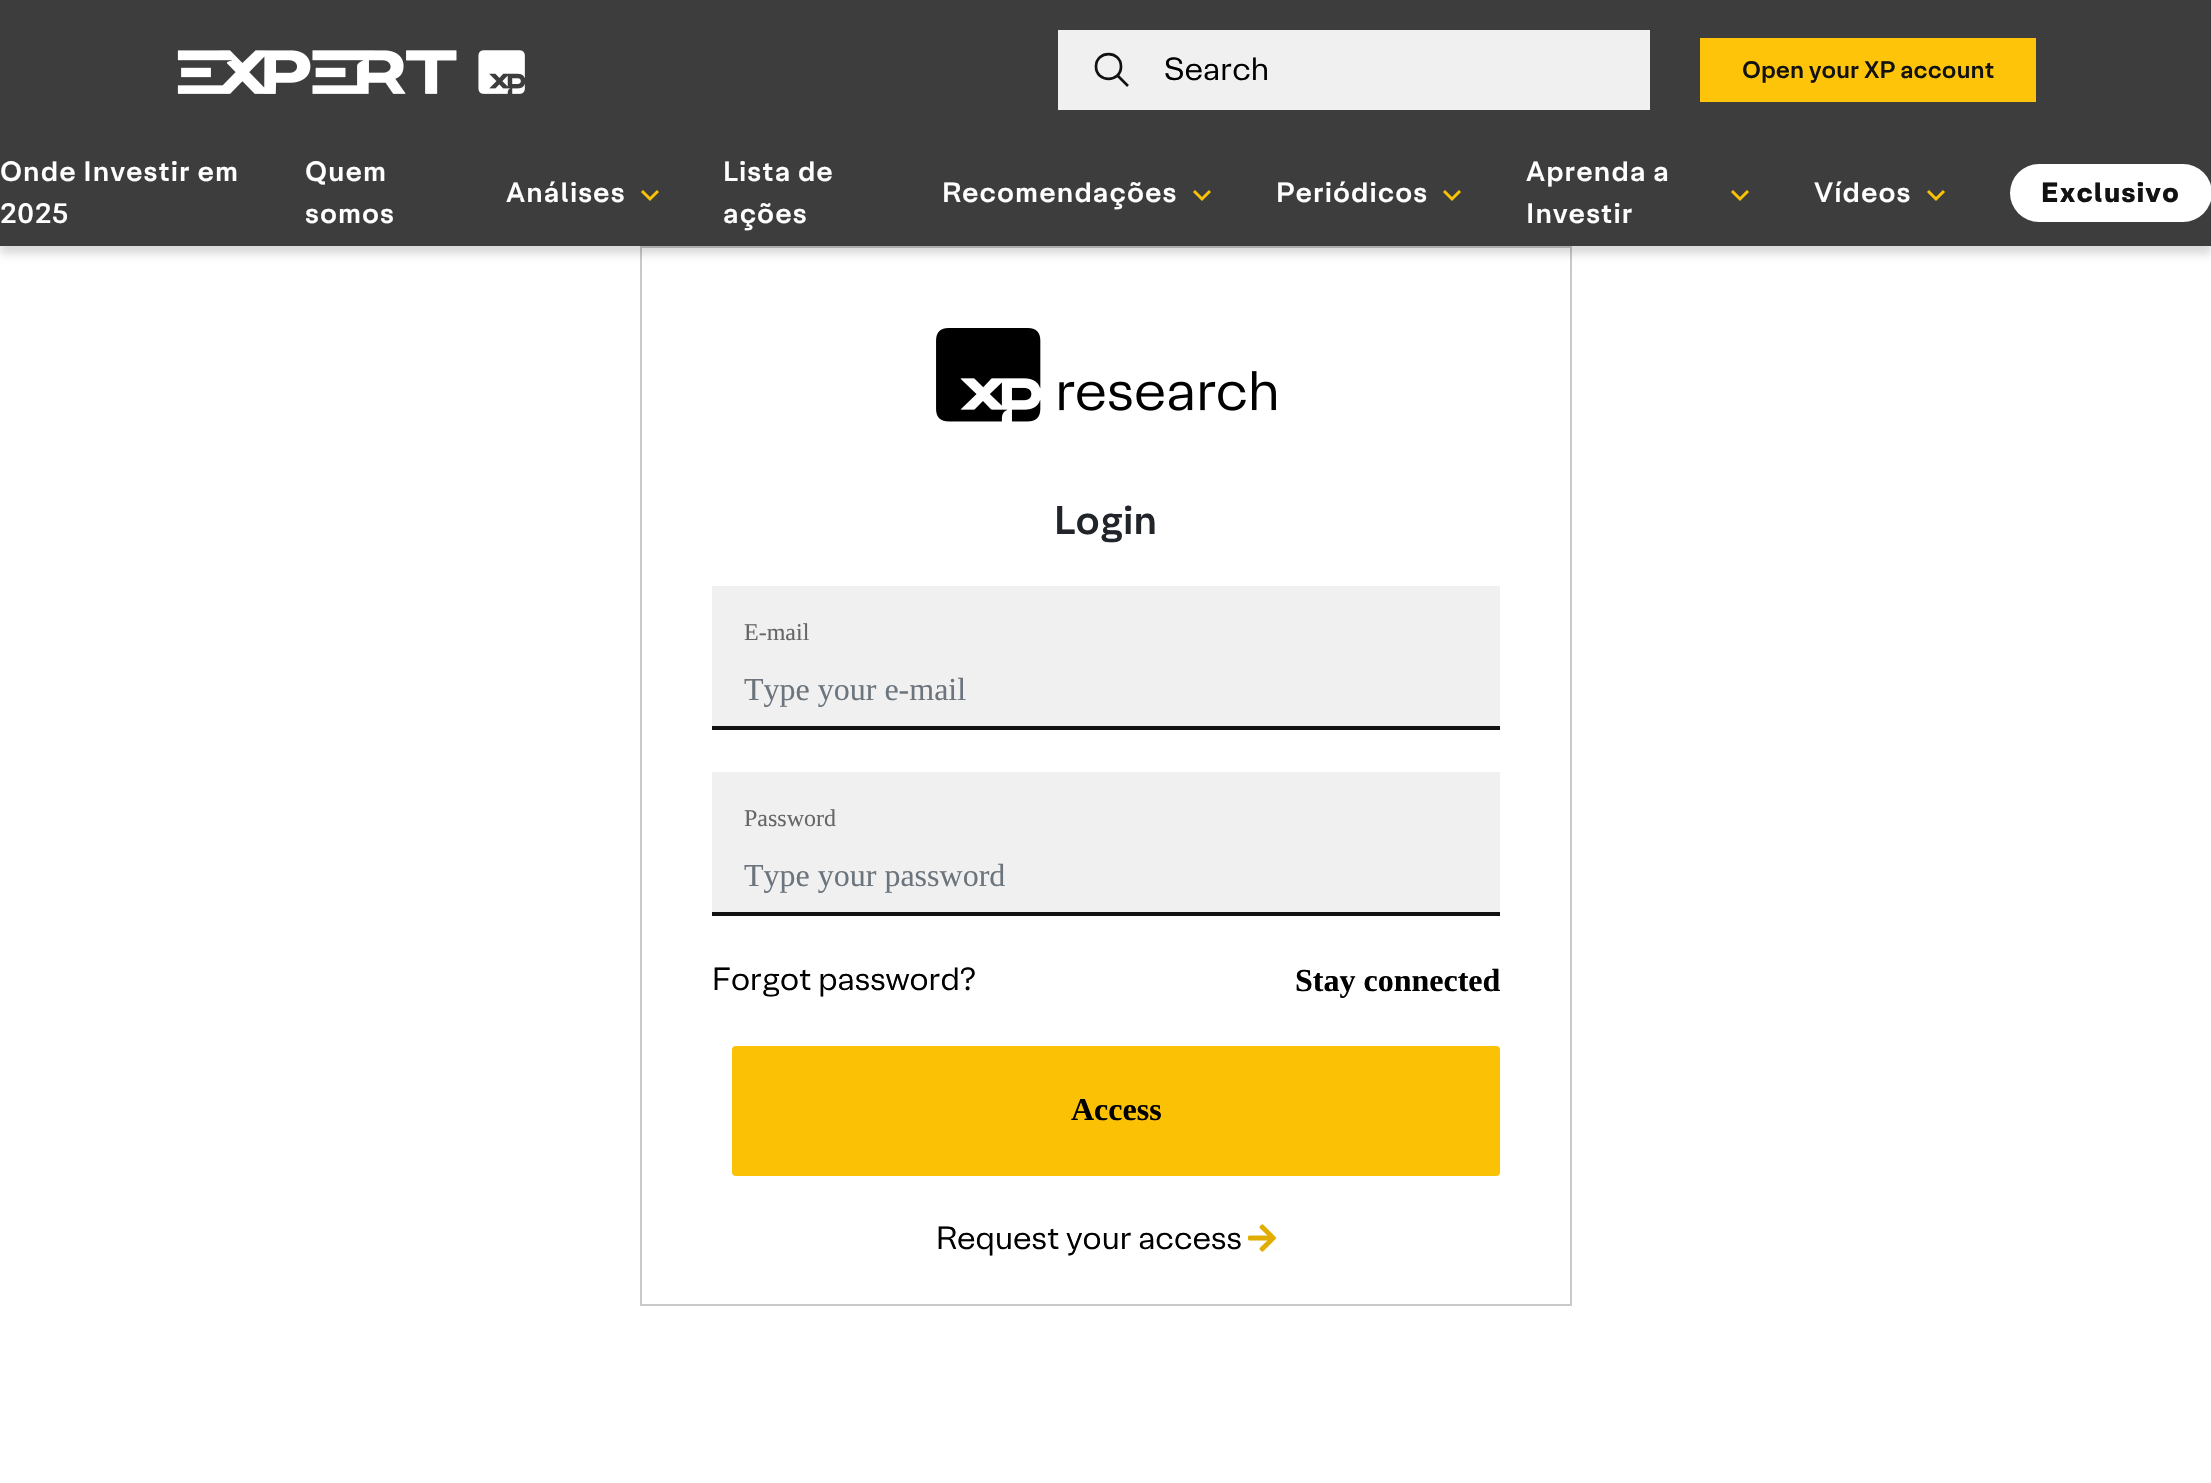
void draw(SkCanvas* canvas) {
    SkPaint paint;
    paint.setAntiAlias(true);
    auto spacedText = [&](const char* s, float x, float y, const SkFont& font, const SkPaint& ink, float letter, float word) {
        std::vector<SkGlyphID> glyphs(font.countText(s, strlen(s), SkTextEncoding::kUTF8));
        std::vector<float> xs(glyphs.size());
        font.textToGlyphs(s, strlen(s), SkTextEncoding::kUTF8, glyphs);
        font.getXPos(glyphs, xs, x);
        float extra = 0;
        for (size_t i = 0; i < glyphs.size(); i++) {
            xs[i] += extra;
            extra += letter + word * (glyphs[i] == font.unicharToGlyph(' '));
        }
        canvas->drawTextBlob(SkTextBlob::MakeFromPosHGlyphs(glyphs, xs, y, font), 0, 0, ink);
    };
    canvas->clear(0xFFFFFFFF);
    paint.setStyle(SkPaint::kStroke_Style);
    paint.setStrokeWidth(2);
    paint.setColor(0xFFC9C9C9);
    canvas->drawRect(SkRect::MakeXYWH(641, 247, 930, 1058), paint);
    paint.setStyle(SkPaint::kFill_Style);
    paint.setColor(0x24000000);
    paint.setMaskFilter(SkMaskFilter::MakeBlur(kNormal_SkBlurStyle, 4));
    canvas->drawRect(SkRect::MakeXYWH(0, 8, 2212, 246), paint);
    paint.setMaskFilter(nullptr);
    paint.setColor(0xFF3D3D3D);
    canvas->drawRect(SkRect::MakeXYWH(0, 0, 2211, 246), paint);
    canvas->drawImageRect(SkImages::DeferredFromEncodedData(SkData::MakeFromFileName("img1.png")), SkRect::MakeXYWH(177, 50, 348, 44), SkSamplingOptions());
    paint.setColor(0xFFF0F0F0);
    canvas->drawRect(SkRect::MakeXYWH(1058, 30, 592, 80), paint);
    paint.setStyle(SkPaint::kStroke_Style);
    paint.setStrokeWidth(2.7f);
    paint.setColor(0xFF121212);
    canvas->drawPath(SkPathBuilder().moveTo(1128, 86).lineTo(1117.5f, 75.5f).moveTo(1121, 66.5f).cubicTo(1121, 83, 1096, 83, 1096, 66.5f).cubicTo(1096, 50, 1121, 50, 1121, 66.5f).close().detach(), paint);
    SkFont font1(fontMgr->matchFamilyStyle("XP", SkFontStyle(300, SkFontStyle::kNormal_Width, SkFontStyle::kUpright_Slant)), 32);
    font1.setSubpixel(true);
    paint.setStyle(SkPaint::kFill_Style);
    paint.setColor(0xFF000000);
    canvas->drawString("Search", 1164, 80, font1, paint);
    paint.setColor(0xFFFDC409);
    canvas->drawRect(SkRect::MakeXYWH(1700, 38, 336, 64), paint);
    SkFont font2(fontMgr->matchFamilyStyle("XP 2", SkFontStyle(300, SkFontStyle::kNormal_Width, SkFontStyle::kUpright_Slant)), 24);
    font2.setSubpixel(true);
    paint.setColor(0xFF121212);
    canvas->drawString("Open your XP account", 1742, 78, font2, paint);
    SkFont font3(fontMgr->matchFamilyStyle("XP 2", SkFontStyle(300, SkFontStyle::kNormal_Width, SkFontStyle::kUpright_Slant)), 28);
    font3.setSubpixel(true);
    paint.setColor(0xFFFFFFFF);
    spacedText("Onde Investir em", 0, 181, font3, paint, 1, 0);
    spacedText("2025", 0, 223, font3, paint, 1, 0);
    spacedText("Quem", 305, 181, font3, paint, 1, 0);
    spacedText("somos", 305, 223, font3, paint, 1, 0);
    spacedText("Análises", 506, 202, font3, paint, 1, 0);
    paint.setStyle(SkPaint::kStroke_Style);
    paint.setStrokeWidth(3);
    paint.setColor(0xFFFBC105);
    canvas->drawPath(SkPathBuilder().moveTo(642, 191).lineTo(650, 199).lineTo(658, 191).detach(), paint);
    paint.setStyle(SkPaint::kFill_Style);
    paint.setColor(0xFFFFFFFF);
    spacedText("Lista de", 723, 181, font3, paint, 1, 0);
    spacedText("ações", 723, 223, font3, paint, 1, 0);
    spacedText("Recomendações", 942, 202, font3, paint, 1, 0);
    paint.setStyle(SkPaint::kStroke_Style);
    paint.setColor(0xFFFBC105);
    canvas->drawPath(SkPathBuilder().moveTo(1194, 191).lineTo(1202, 199).lineTo(1210, 191).detach(), paint);
    paint.setStyle(SkPaint::kFill_Style);
    paint.setColor(0xFFFFFFFF);
    spacedText("Periódicos", 1276, 202, font3, paint, 1, 0);
    paint.setStyle(SkPaint::kStroke_Style);
    paint.setColor(0xFFFBC105);
    canvas->drawPath(SkPathBuilder().moveTo(1444, 191).lineTo(1452, 199).lineTo(1460, 191).detach(), paint);
    paint.setStyle(SkPaint::kFill_Style);
    paint.setColor(0xFFFFFFFF);
    spacedText("Aprenda a", 1526, 181, font3, paint, 1, 0);
    spacedText("Investir", 1526, 223, font3, paint, 1, 0);
    paint.setStyle(SkPaint::kStroke_Style);
    paint.setColor(0xFFFBC105);
    canvas->drawPath(SkPathBuilder().moveTo(1732, 191).lineTo(1740, 199).lineTo(1748, 191).detach(), paint);
    paint.setStyle(SkPaint::kFill_Style);
    paint.setColor(0xFFFFFFFF);
    spacedText("Vídeos", 1814, 202, font3, paint, 1, 0);
    paint.setStyle(SkPaint::kStroke_Style);
    paint.setColor(0xFFFBC105);
    canvas->drawPath(SkPathBuilder().moveTo(1928, 191).lineTo(1936, 199).lineTo(1944, 191).detach(), paint);
    paint.setStyle(SkPaint::kFill_Style);
    paint.setColor(0xFFFFFFFF);
    canvas->drawRoundRect(SkRect::MakeXYWH(2010, 164, 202, 58), 29, 29, paint);
    SkFont font4(fontMgr->matchFamilyStyle("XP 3", SkFontStyle(300, SkFontStyle::kNormal_Width, SkFontStyle::kUpright_Slant)), 28);
    font4.setSubpixel(true);
    paint.setColor(0xFF121212);
    spacedText("Exclusivo", 2041, 202, font4, paint, 1, 0);
    canvas->drawImageRect(SkImages::DeferredFromEncodedData(SkData::MakeFromFileName("img2.png")), SkRect::MakeXYWH(936, 328, 340, 94), SkSamplingOptions());
    SkFont font5(fontMgr->matchFamilyStyle("XP 2", SkFontStyle(300, SkFontStyle::kNormal_Width, SkFontStyle::kUpright_Slant)), 40);
    font5.setSubpixel(true);
    paint.setColor(0xFF212529);
    canvas->drawString("Login", 1054, 534, font5, paint);
    paint.setColor(0xFFF0F0F0);
    canvas->drawRect(SkRect::MakeXYWH(712, 586, 788, 140), paint);
    paint.setColor(0xFF121212);
    canvas->drawRect(SkRect::MakeXYWH(712, 726, 788, 4), paint);
    SkFont font6(fontMgr->matchFamilyStyle("Liberation Serif", SkFontStyle::Normal()), 24);
    font6.setSubpixel(true);
    paint.setColor(0xFF666666);
    canvas->drawString("E-mail", 744, 640, font6, paint);
    SkFont font7(fontMgr->matchFamilyStyle("Liberation Serif", SkFontStyle::Normal()), 32);
    font7.setSubpixel(true);
    paint.setColor(0xFF6C757D);
    canvas->drawString("Type your e-mail", 744, 700, font7, paint);
    paint.setColor(0xFFF0F0F0);
    canvas->drawRect(SkRect::MakeXYWH(712, 772, 788, 140), paint);
    paint.setColor(0xFF121212);
    canvas->drawRect(SkRect::MakeXYWH(712, 912, 788, 4), paint);
    paint.setColor(0xFF666666);
    canvas->drawString("Password", 744, 826, font6, paint);
    paint.setColor(0xFF6C757D);
    canvas->drawString("Type your password", 744, 886, font7, paint);
    paint.setColor(0xFF000000);
    canvas->drawString("Forgot password?", 712, 990, font1, paint);
    SkFont font8(fontMgr->matchFamilyStyle("Liberation Serif", SkFontStyle::Bold()), 32);
    font8.setSubpixel(true);
    canvas->drawString("Stay connected", 1295, 991, font8, paint);
    paint.setColor(0xFFFBC105);
    canvas->drawRoundRect(SkRect::MakeXYWH(732, 1046, 768, 130), 4, 4, paint);
    paint.setColor(0xFF000000);
    canvas->drawString("Access", 1071, 1120, font8, paint);
    canvas->drawString("Request your access", 936, 1249, font1, paint);
    canvas->drawImageRect(SkImages::DeferredFromEncodedData(SkData::MakeFromFileName("img3.png")), SkRect::MakeXYWH(1248, 1224, 28, 28), SkSamplingOptions());
}
